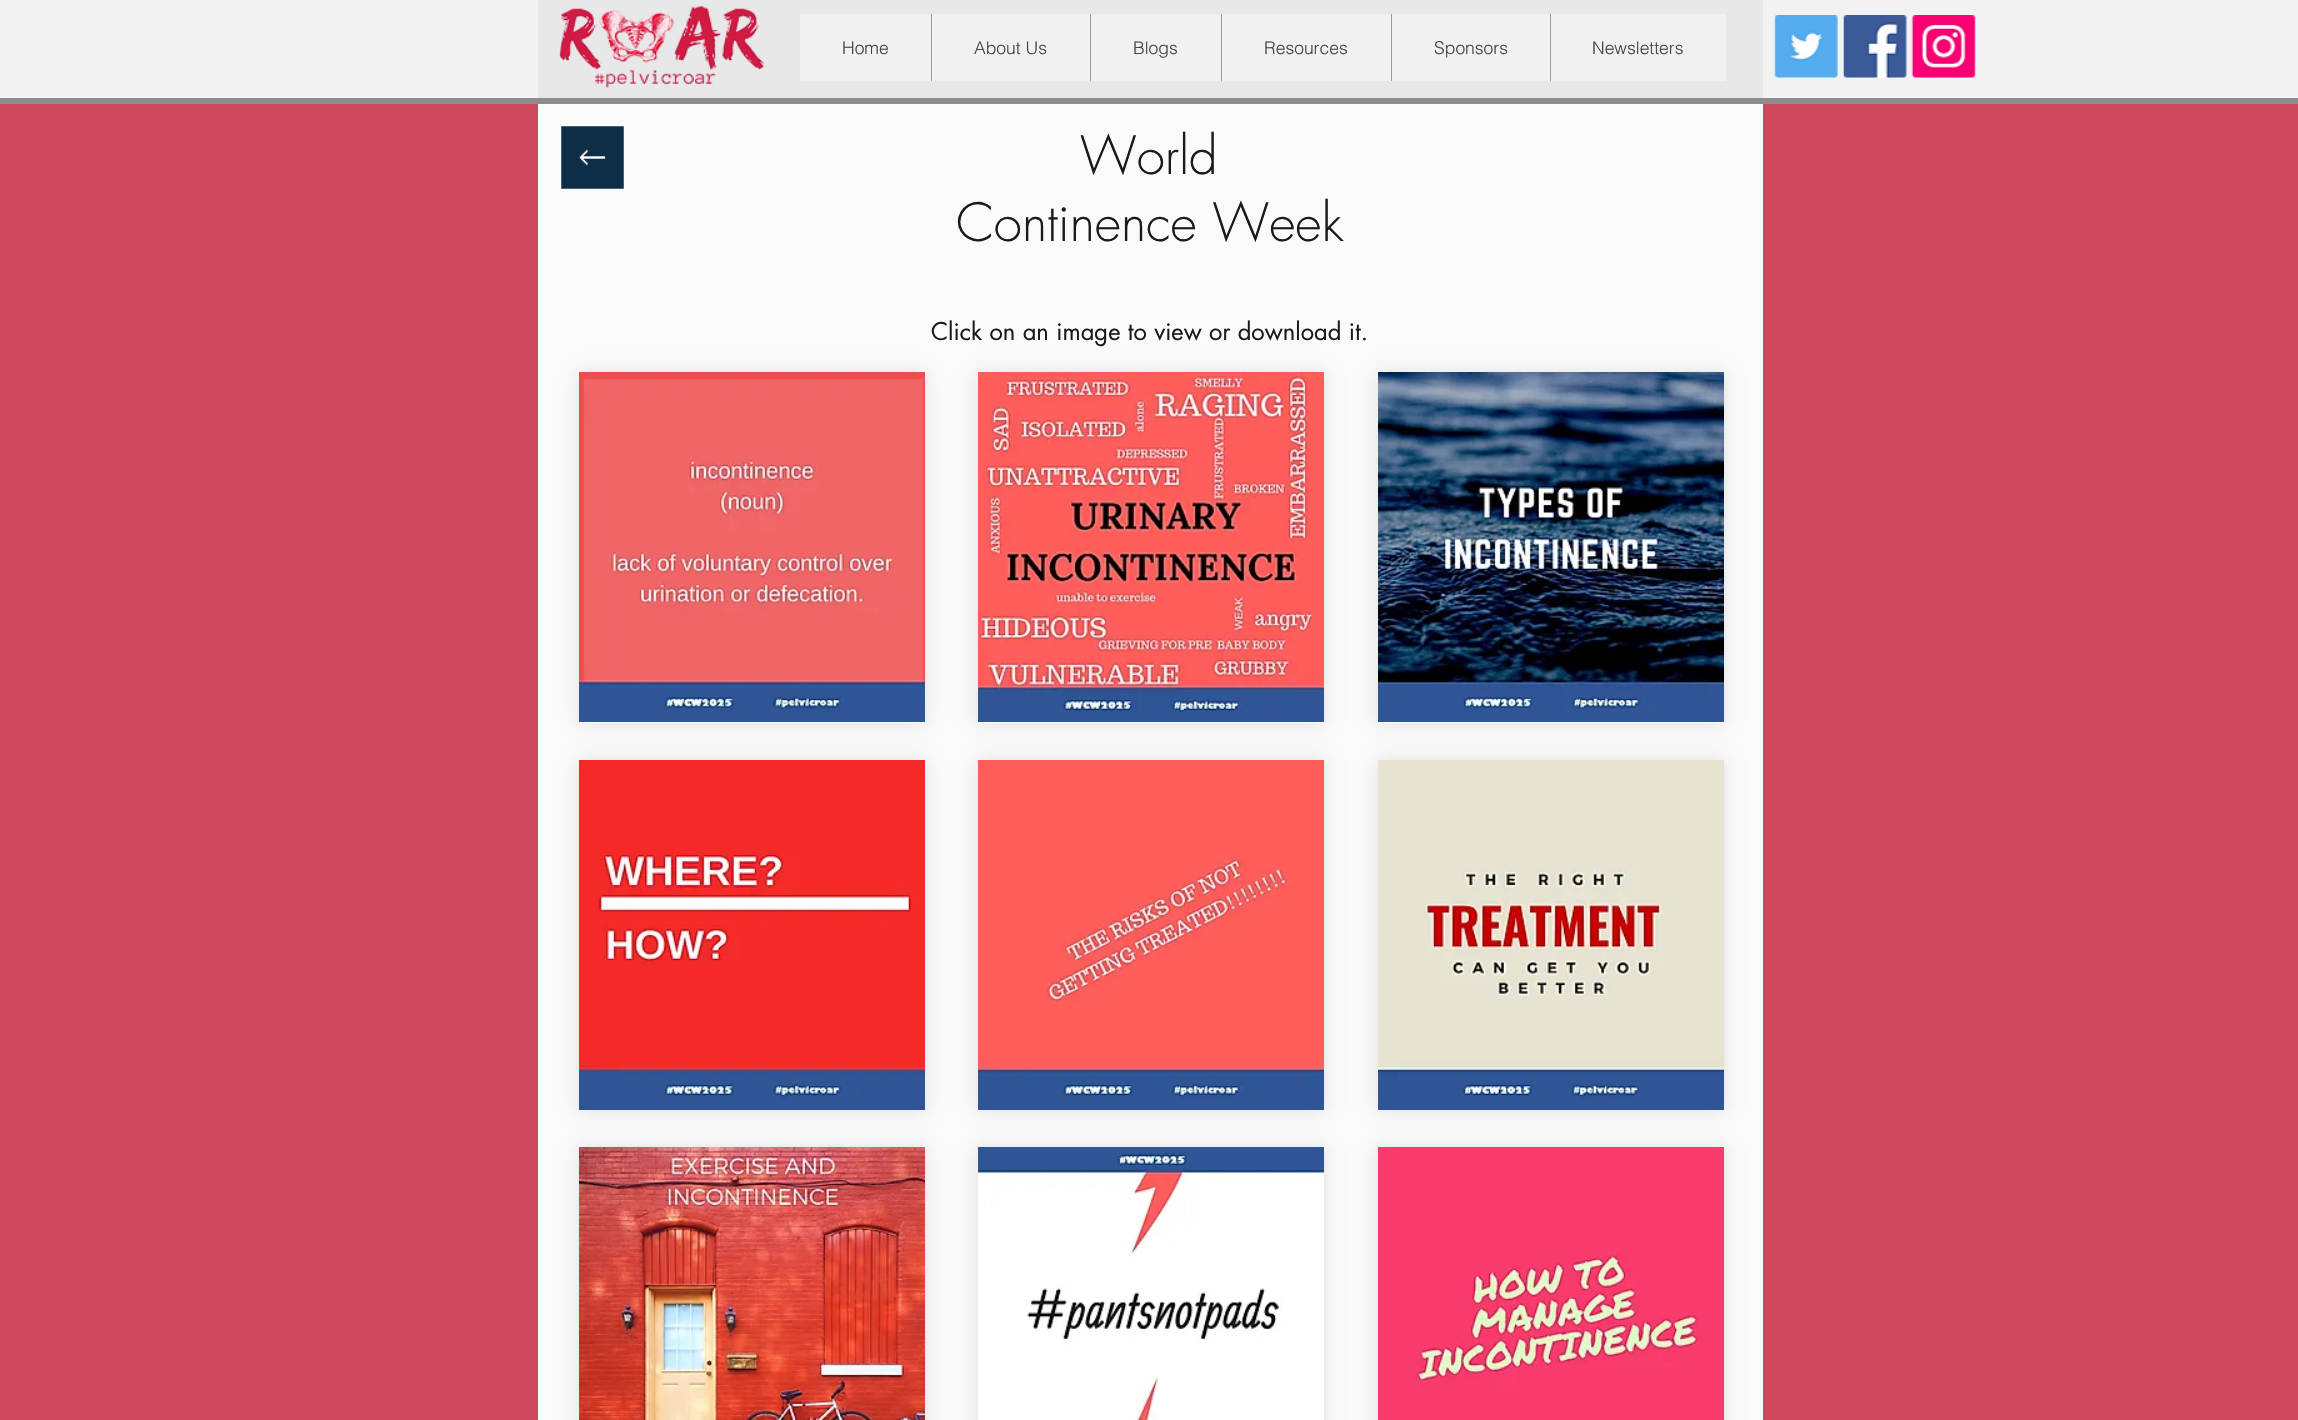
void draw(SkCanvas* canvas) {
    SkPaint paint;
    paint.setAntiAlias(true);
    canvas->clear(0xFFCC495B);
    paint.setColor(0xFFF2F2F2);
    canvas->drawRect(SkRect::MakeXYWH(0, 0, 2298, 98), paint);
    paint.setColor(0xFF8E8D8D);
    canvas->drawRect(SkRect::MakeXYWH(0, 98, 2298, 6), paint);
    paint.setColor(0xFFE8E8E8);
    canvas->drawRect(SkRect::MakeXYWH(538, 0, 1225, 98), paint);
    canvas->drawImageRect(SkImages::DeferredFromEncodedData(SkData::MakeFromFileName("img1.png")), SkRect::MakeXYWH(559, 5, 205, 83), SkSamplingOptions());
    paint.setColor(0xFFF1F1F1);
    canvas->drawRect(SkRect::MakeXYWH(800, 14, 926, 67), paint);
    SkFont font1(fontMgr->matchFamilyStyle("helvetica", SkFontStyle(300, SkFontStyle::kNormal_Width, SkFontStyle::kUpright_Slant)), 17.5f);
    font1.setSubpixel(true);
    paint.setColor(0xFF444444);
    canvas->drawString("Home", 842, 54, font1, paint);
    paint.setColor(0xFF9D9D9D);
    canvas->drawRect(SkRect::MakeXYWH(931, 14, 1, 67), paint);
    paint.setColor(0xFF444444);
    canvas->drawString("About Us", 974, 54, font1, paint);
    paint.setColor(0xFF9D9D9D);
    canvas->drawRect(SkRect::MakeXYWH(1090, 14, 1, 67), paint);
    paint.setColor(0xFF444444);
    canvas->drawString("Blogs", 1133, 54, font1, paint);
    paint.setColor(0xFF9D9D9D);
    canvas->drawRect(SkRect::MakeXYWH(1221, 14, 1, 67), paint);
    paint.setColor(0xFF444444);
    canvas->drawString("Resources", 1264, 54, font1, paint);
    paint.setColor(0xFF9D9D9D);
    canvas->drawRect(SkRect::MakeXYWH(1391, 14, 1, 67), paint);
    paint.setColor(0xFF444444);
    canvas->drawString("Sponsors", 1434, 54, font1, paint);
    paint.setColor(0xFF9D9D9D);
    canvas->drawRect(SkRect::MakeXYWH(1550, 14, 1, 67), paint);
    paint.setColor(0xFF444444);
    canvas->drawString("Newsletters", 1592, 54, font1, paint);
    canvas->drawImageRect(SkImages::DeferredFromEncodedData(SkData::MakeFromFileName("img2.png")), SkRect::MakeXYWH(1774, 15, 64, 63), SkSamplingOptions());
    canvas->drawImageRect(SkImages::DeferredFromEncodedData(SkData::MakeFromFileName("img3.png")), SkRect::MakeXYWH(1843, 15, 64, 63), SkSamplingOptions());
    canvas->drawImageRect(SkImages::DeferredFromEncodedData(SkData::MakeFromFileName("img4.png")), SkRect::MakeXYWH(1911, 15, 65, 63), SkSamplingOptions());
    paint.setColor(0xFFFAFAFA);
    canvas->drawRect(SkRect::MakeXYWH(538, 104, 1225, 1316), paint);
    canvas->drawImageRect(SkImages::DeferredFromEncodedData(SkData::MakeFromFileName("img5.png")), SkRect::MakeXYWH(561, 126, 63, 63), SkSamplingOptions());
    SkFont font2(fontMgr->matchFamilyStyle("futura", SkFontStyle(300, SkFontStyle::kNormal_Width, SkFontStyle::kUpright_Slant)), 51.25f);
    font2.setSubpixel(true);
    paint.setColor(0xFF1A1A19);
    canvas->drawString("World", 1080, 174, font2, paint);
    canvas->drawString("Continence Week", 956, 241, font2, paint);
    SkFont font3(fontMgr->matchFamilyStyle("futura", SkFontStyle::Normal()), 23.75f);
    font3.setSubpixel(true);
    canvas->drawString("Click on an image to view or download it.", 931, 340, font3, paint);
    paint.setColor(0x1A000000);
    paint.setMaskFilter(SkMaskFilter::MakeBlur(kNormal_SkBlurStyle, 8));
    canvas->drawRect(SkRect::MakeXYWH(579, 373, 346, 350), paint);
    paint.setMaskFilter(nullptr);
    canvas->drawImageRect(SkImages::DeferredFromEncodedData(SkData::MakeFromFileName("img6.png")), SkRect::MakeXYWH(579, 372, 346, 350), SkSamplingOptions());
    paint.setColor(0xFFFFFFFF);
    canvas->drawRect(SkRect::MakeXYWH(579, 722, 346, 1), paint);
    paint.setColor(0x1A000000);
    paint.setMaskFilter(SkMaskFilter::MakeBlur(kNormal_SkBlurStyle, 8));
    canvas->drawRect(SkRect::MakeXYWH(579, 760, 346, 350), paint);
    paint.setMaskFilter(nullptr);
    canvas->drawImageRect(SkImages::DeferredFromEncodedData(SkData::MakeFromFileName("img7.png")), SkRect::MakeXYWH(579, 760, 346, 350), SkSamplingOptions());
    paint.setMaskFilter(SkMaskFilter::MakeBlur(kNormal_SkBlurStyle, 8));
    canvas->drawRect(SkRect::MakeXYWH(579, 1148, 346, 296), paint);
    paint.setMaskFilter(nullptr);
    canvas->drawImageRect(SkImages::DeferredFromEncodedData(SkData::MakeFromFileName("img8.png")), SkRect::MakeXYWH(579, 1147, 346, 273), SkSamplingOptions());
    paint.setMaskFilter(SkMaskFilter::MakeBlur(kNormal_SkBlurStyle, 8));
    canvas->drawRect(SkRect::MakeXYWH(978, 373, 346, 350), paint);
    paint.setMaskFilter(nullptr);
    canvas->drawImageRect(SkImages::DeferredFromEncodedData(SkData::MakeFromFileName("img9.png")), SkRect::MakeXYWH(978, 372, 346, 350), SkSamplingOptions());
    paint.setColor(0xFFFFFFFF);
    canvas->drawRect(SkRect::MakeXYWH(978, 722, 346, 1), paint);
    paint.setColor(0x1A000000);
    paint.setMaskFilter(SkMaskFilter::MakeBlur(kNormal_SkBlurStyle, 8));
    canvas->drawRect(SkRect::MakeXYWH(978, 760, 346, 350), paint);
    paint.setMaskFilter(nullptr);
    canvas->drawImageRect(SkImages::DeferredFromEncodedData(SkData::MakeFromFileName("img10.png")), SkRect::MakeXYWH(978, 760, 346, 350), SkSamplingOptions());
    paint.setMaskFilter(SkMaskFilter::MakeBlur(kNormal_SkBlurStyle, 8));
    canvas->drawRect(SkRect::MakeXYWH(978, 1148, 346, 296), paint);
    paint.setMaskFilter(nullptr);
    canvas->drawImageRect(SkImages::DeferredFromEncodedData(SkData::MakeFromFileName("img11.png")), SkRect::MakeXYWH(978, 1147, 346, 273), SkSamplingOptions());
    paint.setMaskFilter(SkMaskFilter::MakeBlur(kNormal_SkBlurStyle, 8));
    canvas->drawRect(SkRect::MakeXYWH(1378, 373, 346, 350), paint);
    paint.setMaskFilter(nullptr);
    canvas->drawImageRect(SkImages::DeferredFromEncodedData(SkData::MakeFromFileName("img12.png")), SkRect::MakeXYWH(1378, 372, 346, 350), SkSamplingOptions());
    paint.setColor(0xFFFFFFFF);
    canvas->drawRect(SkRect::MakeXYWH(1378, 722, 346, 1), paint);
    paint.setColor(0x1A000000);
    paint.setMaskFilter(SkMaskFilter::MakeBlur(kNormal_SkBlurStyle, 8));
    canvas->drawRect(SkRect::MakeXYWH(1378, 760, 346, 350), paint);
    paint.setMaskFilter(nullptr);
    canvas->drawImageRect(SkImages::DeferredFromEncodedData(SkData::MakeFromFileName("img13.png")), SkRect::MakeXYWH(1378, 760, 346, 350), SkSamplingOptions());
    paint.setMaskFilter(SkMaskFilter::MakeBlur(kNormal_SkBlurStyle, 8));
    canvas->drawRect(SkRect::MakeXYWH(1378, 1148, 346, 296), paint);
    paint.setMaskFilter(nullptr);
    canvas->drawImageRect(SkImages::DeferredFromEncodedData(SkData::MakeFromFileName("img14.png")), SkRect::MakeXYWH(1378, 1147, 346, 273), SkSamplingOptions());
}
